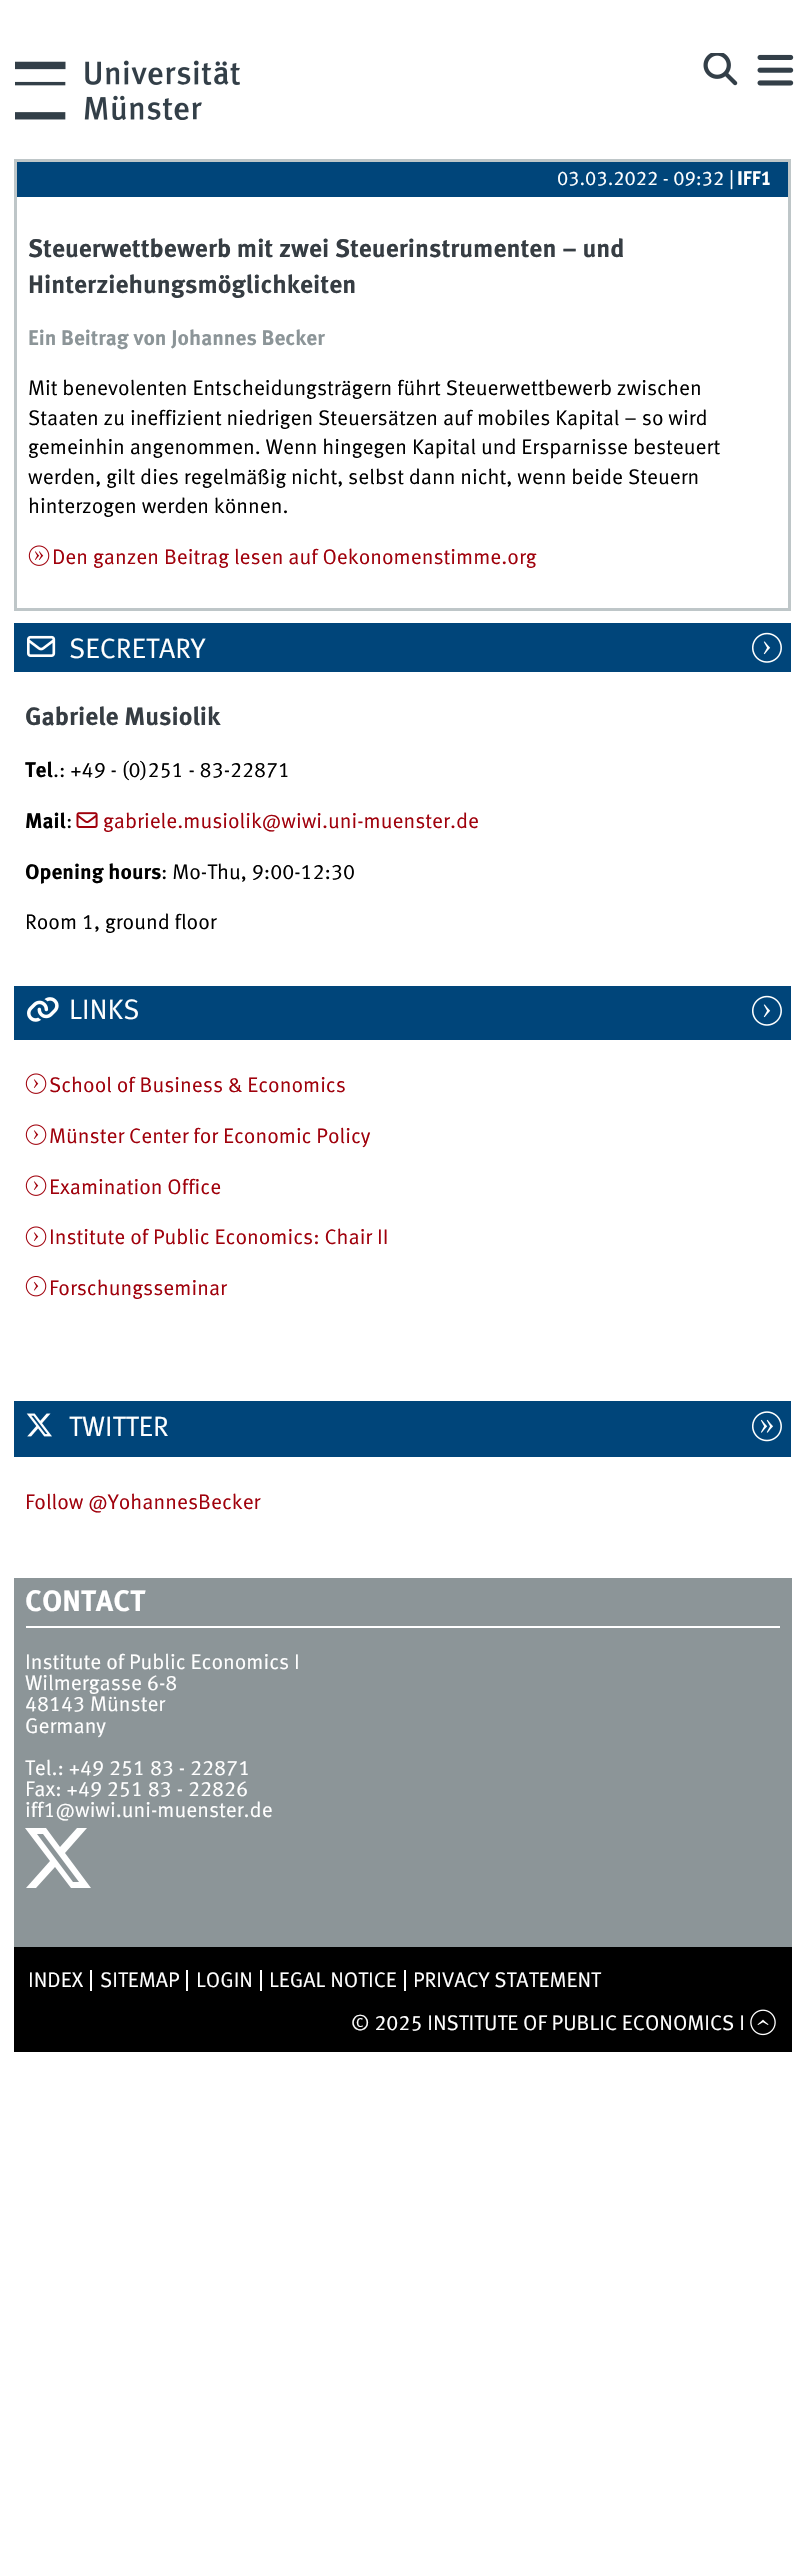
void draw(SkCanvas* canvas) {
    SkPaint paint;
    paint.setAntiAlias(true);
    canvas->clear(0xFFFFFFFF);
    canvas->drawImageRect(SkImages::DeferredFromEncodedData(SkData::MakeFromFileName("img1.png")), SkRect::MakeXYWH(15, 60, 225, 60), SkSamplingOptions());
    canvas->drawImageRect(SkImages::DeferredFromEncodedData(SkData::MakeFromFileName("img2.png")), SkRect::MakeXYWH(703, 53, 35, 33), SkSamplingOptions());
    canvas->drawImageRect(SkImages::DeferredFromEncodedData(SkData::MakeFromFileName("img3.png")), SkRect::MakeXYWH(757, 54, 37, 32), SkSamplingOptions());
    paint.setStyle(SkPaint::kStroke_Style);
    paint.setStrokeWidth(3);
    paint.setColor(0xFFBEC6C8);
    canvas->drawRect(SkRect::MakeXYWH(15.5f, 160.5f, 774, 449), paint);
    paint.setStyle(SkPaint::kFill_Style);
    paint.setColor(0xFF00457A);
    canvas->drawRect(SkRect::MakeXYWH(17, 162, 771, 35), paint);
    SkFont font1(fontMgr->matchFamilyStyle("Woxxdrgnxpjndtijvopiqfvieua", SkFontStyle::Normal()), 19.75f);
    font1.setSubpixel(true);
    paint.setColor(0xFFFFFFFF);
    canvas->drawString("03.03.2022 - 09:32 |", 557, 185, font1, paint);
    SkFont font2(fontMgr->matchFamilyStyle("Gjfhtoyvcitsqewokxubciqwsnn", SkFontStyle::Bold()), 19.75f);
    font2.setSubpixel(true);
    canvas->drawString("IFF1", 737, 185, font2, paint);
    SkFont font3(fontMgr->matchFamilyStyle("Gjfhtoyvcitsqewokxubciqwsnn", SkFontStyle::Bold()), 25.3f);
    font3.setSubpixel(true);
    paint.setColor(0xFF363D43);
    canvas->drawString("Steuerwettbewerb mit zwei Steuerinstrumenten – und", 28, 257, font3, paint);
    canvas->drawString("Hinterziehungsmöglichkeiten", 28, 293, font3, paint);
    SkFont font4(fontMgr->matchFamilyStyle("Gjfhtoyvcitsqewokxubciqwsnn", SkFontStyle::Bold()), 21.1f);
    font4.setSubpixel(true);
    paint.setColor(0xFF8C9598);
    canvas->drawString("Ein Beitrag von Johannes Becker", 28, 345, font4, paint);
    SkFont font5(fontMgr->matchFamilyStyle("Woxxdrgnxpjndtijvopiqfvieua", SkFontStyle::Normal()), 21.1f);
    font5.setSubpixel(true);
    paint.setColor(0xFF000000);
    canvas->drawString("Mit benevolenten Entscheidungsträgern führt Steuerwettbewerb zwischen", 28, 395, font5, paint);
    canvas->drawString("Staaten zu ineffizient niedrigen Steuersätzen auf mobiles Kapital – so wird", 28, 425, font5, paint);
    canvas->drawString("gemeinhin angenommen. Wenn hingegen Kapital und Ersparnisse besteuert", 28, 454, font5, paint);
    canvas->drawString("werden, gilt dies regelmäßig nicht, selbst dann nicht, wenn beide Steuern", 28, 484, font5, paint);
    canvas->drawString("hinterzogen werden können.", 28, 513, font5, paint);
    canvas->drawImageRect(SkImages::DeferredFromEncodedData(SkData::MakeFromFileName("img4.png")), SkRect::MakeXYWH(28, 545, 22, 21), SkSamplingOptions());
    paint.setColor(0xFFA0010C);
    canvas->drawString("Den ganzen Beitrag lesen auf Oekonomenstimme.org", 52, 564, font5, paint);
    paint.setColor(0xFF00457A);
    canvas->drawRect(SkRect::MakeXYWH(14, 623, 777, 49), paint);
    canvas->drawImageRect(SkImages::DeferredFromEncodedData(SkData::MakeFromFileName("img5.png")), SkRect::MakeXYWH(27, 635, 29, 22), SkSamplingOptions());
    SkFont font6(fontMgr->matchFamilyStyle("Woxxdrgnxpjndtijvopiqfvieua", SkFontStyle::Normal()), 28);
    font6.setSubpixel(true);
    paint.setColor(0xFFFFFFFF);
    canvas->drawString("SECRETARY", 69, 658, font6, paint);
    canvas->drawImageRect(SkImages::DeferredFromEncodedData(SkData::MakeFromFileName("img6.png")), SkRect::MakeXYWH(752, 632, 30, 31), SkSamplingOptions());
    paint.setColor(0xFF363D43);
    canvas->drawString("Gabriele Musiolik", 25, 725, font3, paint);
    paint.setColor(0xFF000000);
    canvas->drawString("Tel", 25, 777, font4, paint);
    canvas->drawString(".: +49 - (0)251 - 83-22871", 53, 777, font5, paint);
    canvas->drawString("Mail", 25, 828, font4, paint);
    canvas->drawString(":", 66, 828, font5, paint);
    canvas->drawImageRect(SkImages::DeferredFromEncodedData(SkData::MakeFromFileName("img7.png")), SkRect::MakeXYWH(76, 812, 22, 16), SkSamplingOptions());
    paint.setColor(0xFFA0010C);
    canvas->drawString("gabriele.musiolik@wiwi.uni-muenster.de", 103, 828, font5, paint);
    paint.setColor(0xFF000000);
    canvas->drawString("Opening hours", 25, 879, font4, paint);
    canvas->drawString(": Mo-Thu, 9:00-12:30", 161, 879, font5, paint);
    canvas->drawString("Room 1, ground floor", 25, 929, font5, paint);
    paint.setColor(0xFF00457A);
    canvas->drawRect(SkRect::MakeXYWH(14, 986, 777, 54), paint);
    canvas->drawImageRect(SkImages::DeferredFromEncodedData(SkData::MakeFromFileName("img8.png")), SkRect::MakeXYWH(27, 997, 32, 25), SkSamplingOptions());
    paint.setColor(0xFFFFFFFF);
    canvas->drawString("LINKS", 69, 1019, font6, paint);
    canvas->drawImageRect(SkImages::DeferredFromEncodedData(SkData::MakeFromFileName("img6.png")), SkRect::MakeXYWH(752, 995, 30, 31), SkSamplingOptions());
    canvas->drawImageRect(SkImages::DeferredFromEncodedData(SkData::MakeFromFileName("img9.png")), SkRect::MakeXYWH(25, 1073, 22, 21), SkSamplingOptions());
    paint.setColor(0xFFA0010C);
    canvas->drawString("School of Business & Economics", 49, 1092, font5, paint);
    canvas->drawImageRect(SkImages::DeferredFromEncodedData(SkData::MakeFromFileName("img9.png")), SkRect::MakeXYWH(25, 1124, 22, 21), SkSamplingOptions());
    canvas->drawString("Münster Center for Economic Policy", 49, 1143, font5, paint);
    canvas->drawImageRect(SkImages::DeferredFromEncodedData(SkData::MakeFromFileName("img9.png")), SkRect::MakeXYWH(25, 1175, 22, 21), SkSamplingOptions());
    canvas->drawString("Examination Office", 49, 1194, font5, paint);
    canvas->drawImageRect(SkImages::DeferredFromEncodedData(SkData::MakeFromFileName("img9.png")), SkRect::MakeXYWH(25, 1226, 22, 21), SkSamplingOptions());
    canvas->drawString("Institute of Public Economics: Chair II", 49, 1244, font5, paint);
    canvas->drawImageRect(SkImages::DeferredFromEncodedData(SkData::MakeFromFileName("img10.png")), SkRect::MakeXYWH(25, 1276, 22, 21), SkSamplingOptions());
    canvas->drawString("Forschungsseminar", 49, 1295, font5, paint);
    paint.setColor(0xFF00457A);
    canvas->drawRect(SkRect::MakeXYWH(14, 1401, 777, 56), paint);
    canvas->drawImageRect(SkImages::DeferredFromEncodedData(SkData::MakeFromFileName("img11.png")), SkRect::MakeXYWH(26, 1413, 26, 24), SkSamplingOptions());
    paint.setColor(0xFFFFFFFF);
    canvas->drawString("TWITTER", 69, 1436, font6, paint);
    canvas->drawImageRect(SkImages::DeferredFromEncodedData(SkData::MakeFromFileName("img12.png")), SkRect::MakeXYWH(752, 1411, 30, 31), SkSamplingOptions());
    paint.setColor(0xFFA0010C);
    canvas->drawString("Follow @YohannesBecker", 25, 1509, font5, paint);
    paint.setColor(0xFF8C9598);
    canvas->drawRect(SkRect::MakeXYWH(14, 1578, 778, 369), paint);
    paint.setColor(0xFFFFFFFF);
    canvas->drawRect(SkRect::MakeXYWH(26, 1626, 754, 2), paint);
    SkFont font7(fontMgr->matchFamilyStyle("Gjfhtoyvcitsqewokxubciqwsnn", SkFontStyle::Bold()), 29.5f);
    font7.setSubpixel(true);
    canvas->drawString("CONTACT", 25, 1611, font7, paint);
    canvas->drawString("Institute of Public Economics I", 25, 1669, font5, paint);
    canvas->drawString("Wilmergasse 6-8", 25, 1690, font5, paint);
    canvas->drawString("48143 Münster", 25, 1711, font5, paint);
    canvas->drawString("Germany", 25, 1733, font5, paint);
    canvas->drawString("Tel.: +49 251 83 - 22871", 25, 1775, font5, paint);
    canvas->drawString("Fax: +49 251 83 - 22826", 25, 1796, font5, paint);
    canvas->drawString("iff1@wiwi.uni-muenster.de", 25, 1817, font5, paint);
    canvas->drawPath(SkPathBuilder().moveTo(77, 1828).lineTo(60, 1847).lineTo(46, 1828).lineTo(25, 1828).lineTo(50, 1861).lineTo(26, 1888).lineTo(36, 1888).lineTo(55, 1867).lineTo(71, 1888).lineTo(91, 1888).lineTo(65, 1853).lineTo(87, 1828).close().moveTo(73, 1882).lineTo(37, 1834).lineTo(43, 1834).lineTo(79, 1882).close().detach(), paint);
    paint.setColor(0xFF000000);
    canvas->drawRect(SkRect::MakeXYWH(14, 1947, 778, 105), paint);
    paint.setColor(0xFFFFFFFF);
    canvas->drawString("INDEX", 28, 1987, font5, paint);
    canvas->drawRect(SkRect::MakeXYWH(90, 1970, 2, 21), paint);
    canvas->drawString("SITEMAP", 100, 1987, font5, paint);
    canvas->drawRect(SkRect::MakeXYWH(186, 1970, 2, 21), paint);
    canvas->drawString("LOGIN", 196, 1987, font5, paint);
    canvas->drawRect(SkRect::MakeXYWH(260, 1970, 2, 21), paint);
    canvas->drawString("LEGAL NOTICE", 269, 1987, font5, paint);
    canvas->drawRect(SkRect::MakeXYWH(404, 1970, 2, 21), paint);
    canvas->drawString("PRIVACY STATEMENT", 413, 1987, font5, paint);
    canvas->drawString("© 2025 INSTITUTE OF PUBLIC ECONOMICS I", 351, 2030, font5, paint);
    canvas->drawImageRect(SkImages::DeferredFromEncodedData(SkData::MakeFromFileName("img13.png")), SkRect::MakeXYWH(750, 2009, 26, 27), SkSamplingOptions());
}
